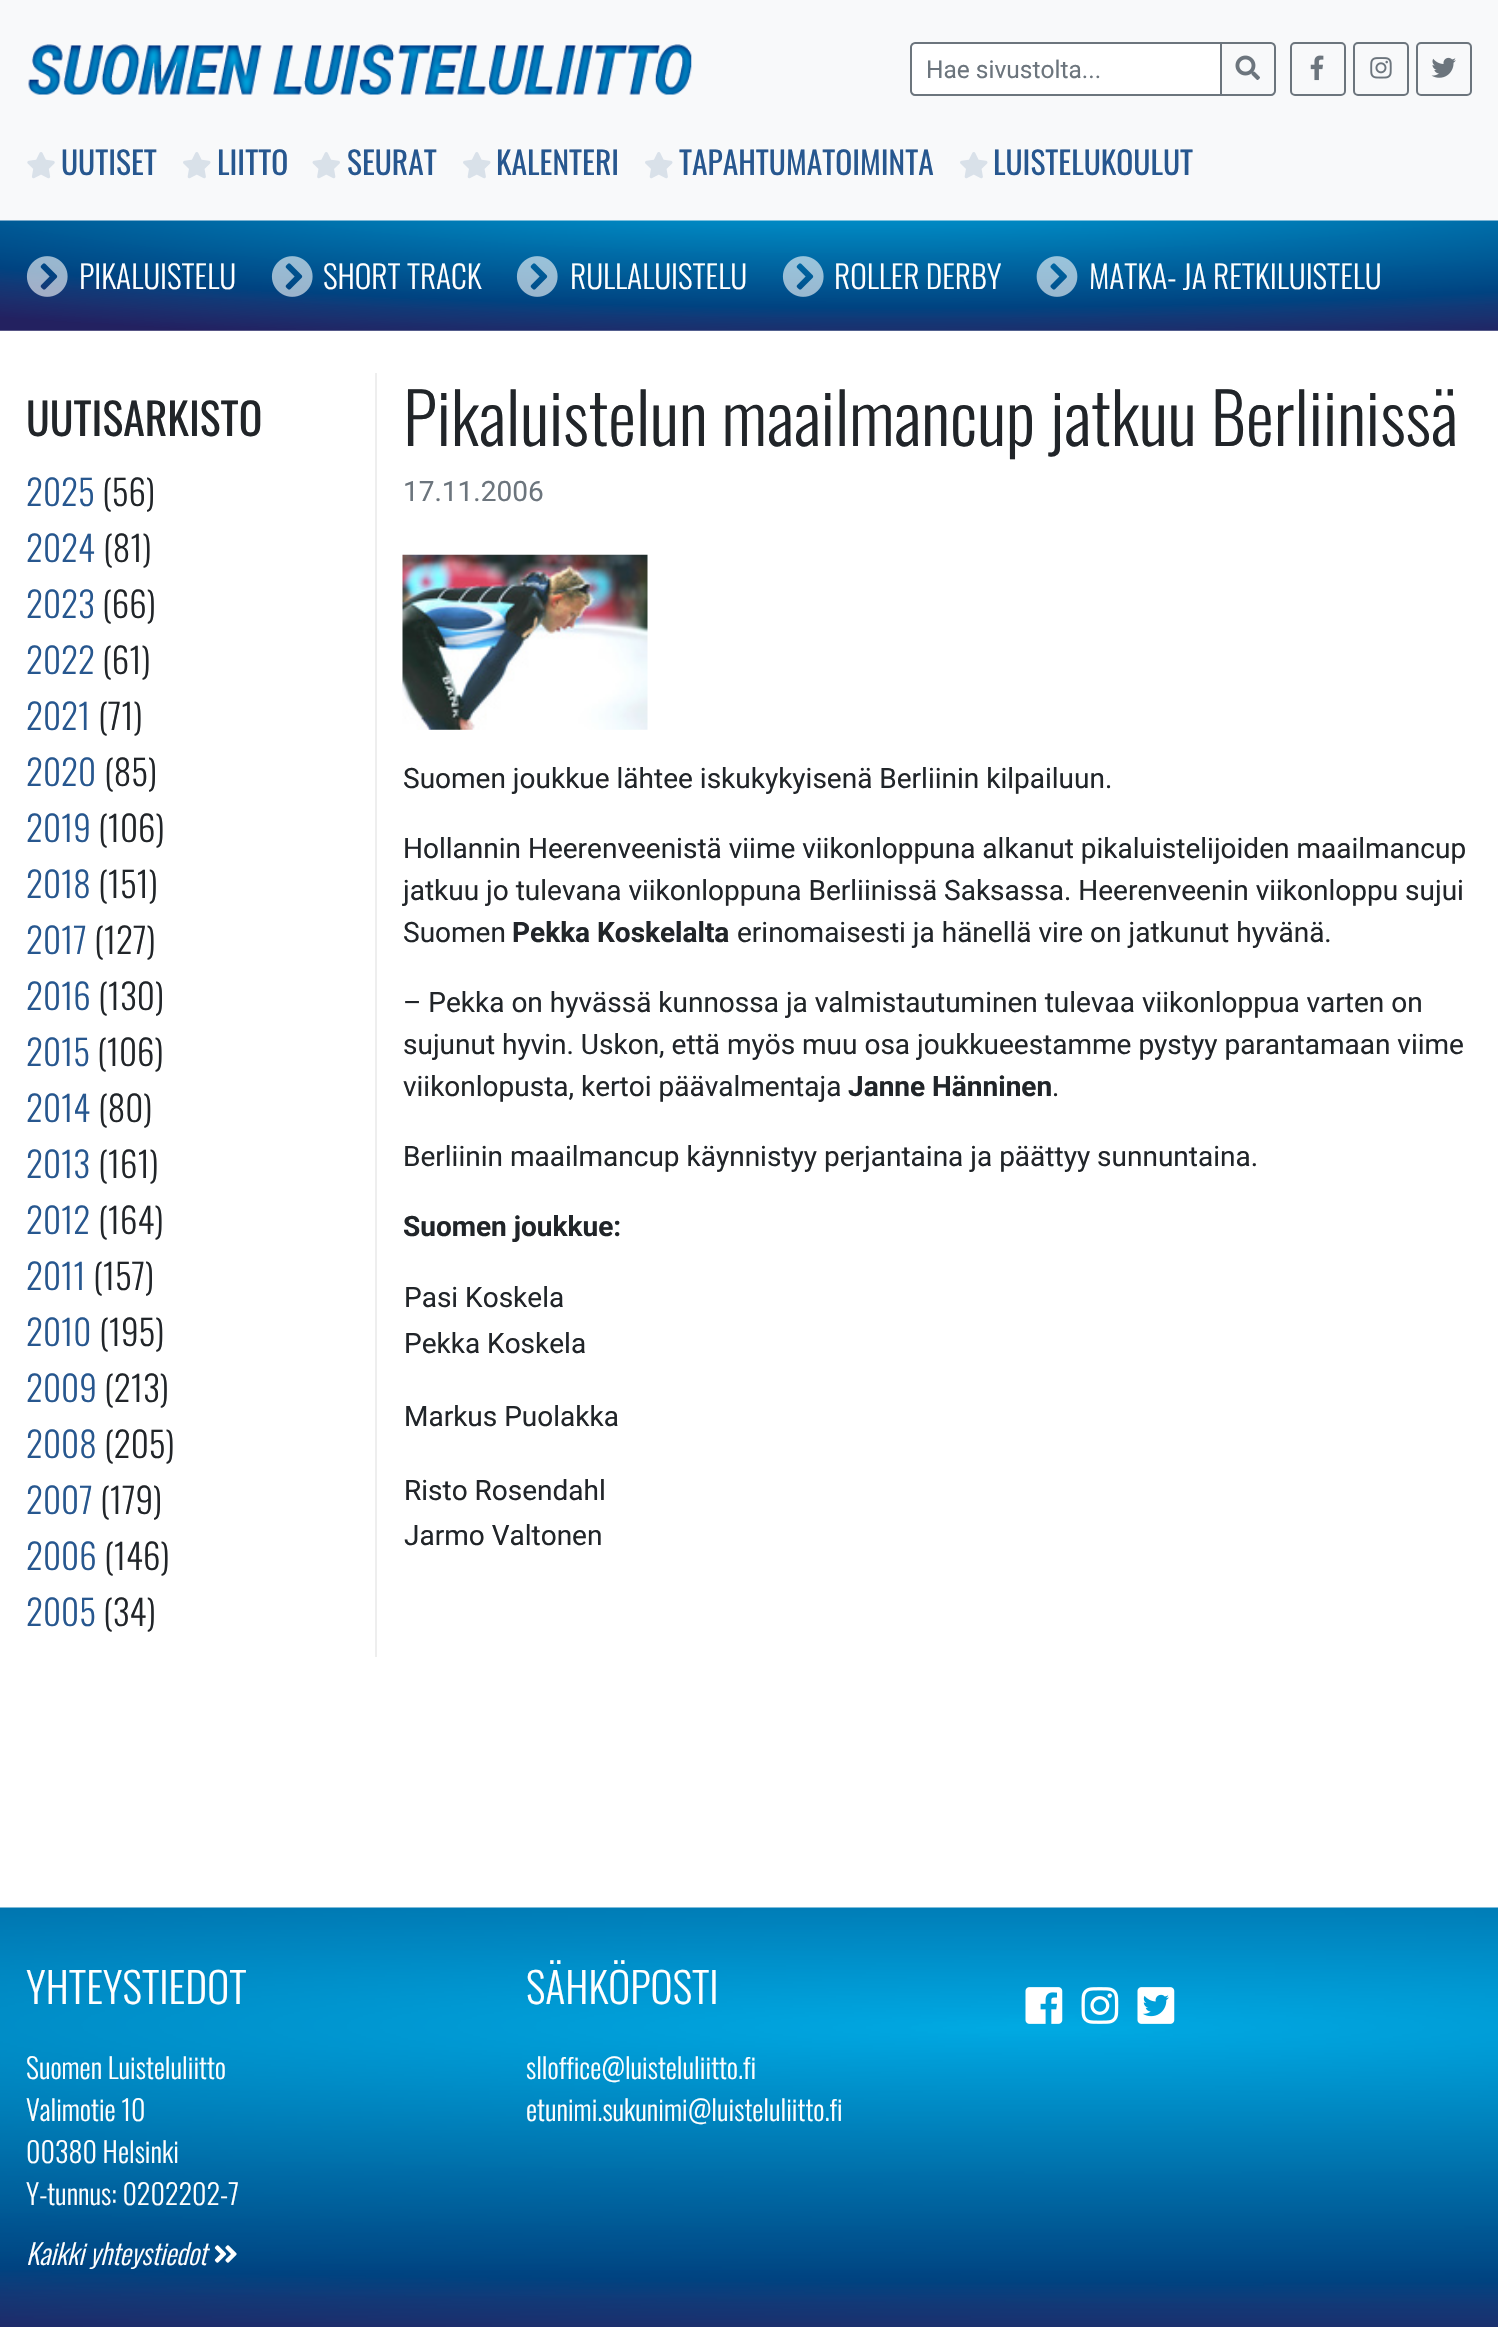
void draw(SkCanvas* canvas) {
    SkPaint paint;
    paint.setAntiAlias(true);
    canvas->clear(0xFFFFFFFF);
    paint.setColor(0xFFF8F9FA);
    canvas->drawRect(SkRect::MakeXYWH(0, 0, 1498, 331), paint);
    canvas->drawImageRect(SkImages::DeferredFromEncodedData(SkData::MakeFromFileName("img1.png")), SkRect::MakeXYWH(28, 44, 664, 51), SkSamplingOptions());
    paint.setColor(0xFFFFFFFF);
    canvas->drawPath(SkPathBuilder().moveTo(915, 43).lineTo(1221, 43).lineTo(1221, 95).lineTo(915, 95).cubicTo(913, 95, 911, 93, 911, 91).lineTo(911, 47).cubicTo(911, 45, 913, 43, 915, 43).close().detach(), paint);
    paint.setStyle(SkPaint::kStroke_Style);
    paint.setStrokeWidth(2);
    paint.setColor(0xFF6C757D);
    canvas->drawPath(SkPathBuilder().moveTo(915, 43).lineTo(1221, 43).lineTo(1221, 95).lineTo(915, 95).cubicTo(913, 95, 911, 93, 911, 91).lineTo(911, 47).cubicTo(911, 45, 913, 43, 915, 43).close().detach(), paint);
    SkFont font1(fontMgr->matchFamilyStyle("Roboto", SkFontStyle::Normal()), 24.5f);
    font1.setSubpixel(true);
    paint.setStyle(SkPaint::kFill_Style);
    canvas->drawString("Hae sivustolta...", 926, 78, font1, paint);
    paint.setStyle(SkPaint::kStroke_Style);
    canvas->drawPath(SkPathBuilder().moveTo(1221, 43).lineTo(1271, 43).cubicTo(1273, 43, 1275, 45, 1275, 47).lineTo(1275, 91).cubicTo(1275, 93, 1273, 95, 1271, 95).lineTo(1221, 95).close().detach(), paint);
    canvas->drawImageRect(SkImages::DeferredFromEncodedData(SkData::MakeFromFileName("img2.png")), SkRect::MakeXYWH(1235, 55, 25, 25), SkSamplingOptions());
    canvas->drawRoundRect(SkRect::MakeXYWH(1291, 43, 54, 52), 4, 4, paint);
    canvas->drawImageRect(SkImages::DeferredFromEncodedData(SkData::MakeFromFileName("img3.png")), SkRect::MakeXYWH(1310, 55, 14, 26), SkSamplingOptions());
    canvas->drawRoundRect(SkRect::MakeXYWH(1354, 43, 54, 52), 4, 4, paint);
    canvas->drawImageRect(SkImages::DeferredFromEncodedData(SkData::MakeFromFileName("img4.png")), SkRect::MakeXYWH(1370, 57, 22, 22), SkSamplingOptions());
    canvas->drawRoundRect(SkRect::MakeXYWH(1417, 43, 54, 52), 4, 4, paint);
    canvas->drawImageRect(SkImages::DeferredFromEncodedData(SkData::MakeFromFileName("img5.png")), SkRect::MakeXYWH(1431, 57, 25, 21), SkSamplingOptions());
    canvas->drawImageRect(SkImages::DeferredFromEncodedData(SkData::MakeFromFileName("img6.png")), SkRect::MakeXYWH(27, 152, 28, 27), SkSamplingOptions());
    SkFont font2(fontMgr->matchFamilyStyle("Oswald", SkFontStyle::Normal()), 31.5f);
    font2.setSubpixel(true);
    paint.setStyle(SkPaint::kFill_Style);
    paint.setColor(0xFF27578F);
    canvas->drawString("UUTISET", 61, 175, font2, paint);
    canvas->drawImageRect(SkImages::DeferredFromEncodedData(SkData::MakeFromFileName("img7.png")), SkRect::MakeXYWH(183, 152, 28, 27), SkSamplingOptions());
    canvas->drawString("LIITTO", 217, 175, font2, paint);
    canvas->drawImageRect(SkImages::DeferredFromEncodedData(SkData::MakeFromFileName("img8.png")), SkRect::MakeXYWH(312, 152, 28, 27), SkSamplingOptions());
    canvas->drawString("SEURAT", 347, 175, font2, paint);
    canvas->drawImageRect(SkImages::DeferredFromEncodedData(SkData::MakeFromFileName("img7.png")), SkRect::MakeXYWH(463, 152, 28, 27), SkSamplingOptions());
    canvas->drawString("KALENTERI", 496, 175, font2, paint);
    canvas->drawImageRect(SkImages::DeferredFromEncodedData(SkData::MakeFromFileName("img7.png")), SkRect::MakeXYWH(645, 152, 28, 27), SkSamplingOptions());
    canvas->drawString("TAPAHTUMATOIMINTA", 679, 175, font2, paint);
    canvas->drawImageRect(SkImages::DeferredFromEncodedData(SkData::MakeFromFileName("img7.png")), SkRect::MakeXYWH(960, 152, 28, 27), SkSamplingOptions());
    canvas->drawString("LUISTELUKOULUT", 993, 175, font2, paint);
    canvas->drawImageRect(SkImages::DeferredFromEncodedData(SkData::MakeFromFileName("img9.png")), SkRect::MakeXYWH(0, 220, 1498, 111), SkSamplingOptions());
    canvas->drawImageRect(SkImages::DeferredFromEncodedData(SkData::MakeFromFileName("img10.png")), SkRect::MakeXYWH(26, 256, 42, 41), SkSamplingOptions());
    SkFont font3(fontMgr->matchFamilyStyle("Oswald", SkFontStyle(300, SkFontStyle::kNormal_Width, SkFontStyle::kUpright_Slant)), 31.5f);
    font3.setSubpixel(true);
    paint.setColor(0xFFFFFFFF);
    canvas->drawString("PIKALUISTELU", 79, 289, font3, paint);
    canvas->drawImageRect(SkImages::DeferredFromEncodedData(SkData::MakeFromFileName("img11.png")), SkRect::MakeXYWH(271, 256, 42, 41), SkSamplingOptions());
    canvas->drawString("SHORT TRACK", 323, 289, font3, paint);
    canvas->drawImageRect(SkImages::DeferredFromEncodedData(SkData::MakeFromFileName("img12.png")), SkRect::MakeXYWH(516, 256, 42, 41), SkSamplingOptions());
    canvas->drawString("RULLALUISTELU", 570, 289, font3, paint);
    canvas->drawImageRect(SkImages::DeferredFromEncodedData(SkData::MakeFromFileName("img13.png")), SkRect::MakeXYWH(782, 256, 42, 41), SkSamplingOptions());
    canvas->drawString("ROLLER DERBY", 834, 289, font3, paint);
    canvas->drawImageRect(SkImages::DeferredFromEncodedData(SkData::MakeFromFileName("img14.png")), SkRect::MakeXYWH(1036, 256, 42, 41), SkSamplingOptions());
    canvas->drawString("MATKA- JA RETKILUISTELU", 1089, 289, font3, paint);
    SkFont font4(fontMgr->matchFamilyStyle("Oswald", SkFontStyle::Normal()), 43.75f);
    font4.setSubpixel(true);
    paint.setColor(0xFF212529);
    canvas->drawString("UUTISARKISTO", 26, 436, font4, paint);
    SkFont font5(fontMgr->matchFamilyStyle("Oswald", SkFontStyle(300, SkFontStyle::kNormal_Width, SkFontStyle::kUpright_Slant)), 35);
    font5.setSubpixel(true);
    paint.setColor(0xFF27578F);
    canvas->drawString("2025", 26, 506, font5, paint);
    paint.setColor(0xFF212529);
    canvas->drawString("(56)", 102, 506, font5, paint);
    paint.setColor(0xFF27578F);
    canvas->drawString("2024", 26, 562, font5, paint);
    paint.setColor(0xFF212529);
    canvas->drawString("(81)", 103, 562, font5, paint);
    paint.setColor(0xFF27578F);
    canvas->drawString("2023", 26, 618, font5, paint);
    paint.setColor(0xFF212529);
    canvas->drawString("(66)", 102, 618, font5, paint);
    paint.setColor(0xFF27578F);
    canvas->drawString("2022", 26, 674, font5, paint);
    paint.setColor(0xFF212529);
    canvas->drawString("(61)", 102, 674, font5, paint);
    paint.setColor(0xFF27578F);
    canvas->drawString("2021", 26, 730, font5, paint);
    paint.setColor(0xFF212529);
    canvas->drawString("(71)", 98, 730, font5, paint);
    paint.setColor(0xFF27578F);
    canvas->drawString("2020", 26, 786, font5, paint);
    paint.setColor(0xFF212529);
    canvas->drawString("(85)", 104, 786, font5, paint);
    paint.setColor(0xFF27578F);
    canvas->drawString("2019", 26, 842, font5, paint);
    paint.setColor(0xFF212529);
    canvas->drawString("(106)", 98, 842, font5, paint);
    paint.setColor(0xFF27578F);
    canvas->drawString("2018", 26, 898, font5, paint);
    paint.setColor(0xFF212529);
    canvas->drawString("(151)", 98, 898, font5, paint);
    paint.setColor(0xFF27578F);
    canvas->drawString("2017", 26, 954, font5, paint);
    paint.setColor(0xFF212529);
    canvas->drawString("(127)", 94, 954, font5, paint);
    paint.setColor(0xFF27578F);
    canvas->drawString("2016", 26, 1010, font5, paint);
    paint.setColor(0xFF212529);
    canvas->drawString("(130)", 98, 1010, font5, paint);
    paint.setColor(0xFF27578F);
    canvas->drawString("2015", 26, 1066, font5, paint);
    paint.setColor(0xFF212529);
    canvas->drawString("(106)", 97, 1066, font5, paint);
    paint.setColor(0xFF27578F);
    canvas->drawString("2014", 26, 1122, font5, paint);
    paint.setColor(0xFF212529);
    canvas->drawString("(80)", 98, 1122, font5, paint);
    paint.setColor(0xFF27578F);
    canvas->drawString("2013", 26, 1178, font5, paint);
    paint.setColor(0xFF212529);
    canvas->drawString("(161)", 98, 1178, font5, paint);
    paint.setColor(0xFF27578F);
    canvas->drawString("2012", 26, 1234, font5, paint);
    paint.setColor(0xFF212529);
    canvas->drawString("(164)", 98, 1234, font5, paint);
    paint.setColor(0xFF27578F);
    canvas->drawString("2011", 26, 1290, font5, paint);
    paint.setColor(0xFF212529);
    canvas->drawString("(157)", 93, 1290, font5, paint);
    paint.setColor(0xFF27578F);
    canvas->drawString("2010", 26, 1346, font5, paint);
    paint.setColor(0xFF212529);
    canvas->drawString("(195)", 99, 1346, font5, paint);
    paint.setColor(0xFF27578F);
    canvas->drawString("2009", 26, 1402, font5, paint);
    paint.setColor(0xFF212529);
    canvas->drawString("(213)", 104, 1402, font5, paint);
    paint.setColor(0xFF27578F);
    canvas->drawString("2008", 26, 1458, font5, paint);
    paint.setColor(0xFF212529);
    canvas->drawString("(205)", 104, 1458, font5, paint);
    paint.setColor(0xFF27578F);
    canvas->drawString("2007", 26, 1514, font5, paint);
    paint.setColor(0xFF212529);
    canvas->drawString("(179)", 100, 1514, font5, paint);
    paint.setColor(0xFF27578F);
    canvas->drawString("2006", 26, 1570, font5, paint);
    paint.setColor(0xFF212529);
    canvas->drawString("(146)", 104, 1570, font5, paint);
    paint.setColor(0xFF27578F);
    canvas->drawString("2005", 26, 1626, font5, paint);
    paint.setColor(0xFF212529);
    canvas->drawString("(34)", 103, 1626, font5, paint);
    paint.setColor(0xFFEEEEEE);
    canvas->drawRect(SkRect::MakeXYWH(375, 373, 2, 1284), paint);
    SkFont font6(fontMgr->matchFamilyStyle("Oswald", SkFontStyle(300, SkFontStyle::kNormal_Width, SkFontStyle::kUpright_Slant)), 70);
    font6.setSubpixel(true);
    paint.setColor(0xFF212529);
    canvas->drawString("Pikaluistelun maailmancup jatkuu Berliinissä", 403, 446, font6, paint);
    SkFont font7(fontMgr->matchFamilyStyle("Roboto", SkFontStyle::Normal()), 28);
    font7.setSubpixel(true);
    paint.setColor(0xFF6C757D);
    canvas->drawString("17.11.2006", 403, 501, font7, paint);
    canvas->drawImageRect(SkImages::DeferredFromEncodedData(SkData::MakeFromFileName("img15.png")), SkRect::MakeXYWH(402, 554, 246, 176), SkSamplingOptions());
    paint.setColor(0xFF212529);
    canvas->drawString("Suomen joukkue lähtee iskukykyisenä Berliinin kilpailuun.", 403, 788, font7, paint);
    canvas->drawString("Hollannin Heerenveenistä viime viikonloppuna alkanut pikaluistelijoiden maailmancup", 403, 858, font7, paint);
    canvas->drawString("jatkuu jo tulevana viikonloppuna Berliinissä Saksassa. Heerenveenin viikonloppu sujui", 403, 900, font7, paint);
    canvas->drawString("Suomen", 403, 942, font7, paint);
    SkFont font8(fontMgr->matchFamilyStyle("Roboto", SkFontStyle::Bold()), 28);
    font8.setSubpixel(true);
    canvas->drawString("Pekka Koskelalta", 512, 942, font8, paint);
    canvas->drawString("erinomaisesti ja hänellä vire on jatkunut hyvänä.", 737, 942, font7, paint);
    canvas->drawString("– Pekka on hyvässä kunnossa ja valmistautuminen tulevaa viikonloppua varten on", 403, 1012, font7, paint);
    canvas->drawString("sujunut hyvin. Uskon, että myös muu osa joukkueestamme pystyy parantamaan viime", 403, 1054, font7, paint);
    canvas->drawString("viikonlopusta, kertoi päävalmentaja", 403, 1096, font7, paint);
    canvas->drawString("Janne Hänninen", 848, 1096, font8, paint);
    canvas->drawString(".", 1052, 1096, font7, paint);
    canvas->drawString("Berliinin maailmancup käynnistyy perjantaina ja päättyy sunnuntaina.", 403, 1166, font7, paint);
    canvas->drawString("Suomen joukkue:", 403, 1236, font8, paint);
    canvas->drawString("Pasi Koskela", 404, 1307, font7, paint);
    canvas->drawString("Pekka Koskela", 404, 1353, font7, paint);
    canvas->drawString("Markus Puolakka", 404, 1426, font7, paint);
    canvas->drawString("Risto Rosendahl", 404, 1500, font7, paint);
    canvas->drawString("Jarmo Valtonen", 404, 1545, font7, paint);
    canvas->drawImageRect(SkImages::DeferredFromEncodedData(SkData::MakeFromFileName("img16.png")), SkRect::MakeXYWH(0, 1907, 1498, 420), SkSamplingOptions());
    SkFont font9(fontMgr->matchFamilyStyle("Oswald", SkFontStyle(300, SkFontStyle::kNormal_Width, SkFontStyle::kUpright_Slant)), 42);
    font9.setSubpixel(true);
    paint.setColor(0xFFFFFFFF);
    canvas->drawString("YHTEYSTIEDOT", 26, 2004, font9, paint);
    SkFont font10(fontMgr->matchFamilyStyle("Oswald", SkFontStyle(300, SkFontStyle::kNormal_Width, SkFontStyle::kUpright_Slant)), 28);
    font10.setSubpixel(true);
    canvas->drawString("Suomen Luisteluliitto", 26, 2079, font10, paint);
    canvas->drawString("Valimotie 10", 26, 2121, font10, paint);
    canvas->drawString("00380 Helsinki", 26, 2163, font10, paint);
    canvas->drawString("Y-tunnus: 0202202-7", 26, 2205, font10, paint);
    SkFont font11(fontMgr->matchFamilyStyle("Oswald", SkFontStyle(300, SkFontStyle::kNormal_Width, SkFontStyle::kItalic_Slant)), 28);
    font11.setSubpixel(true);
    canvas->drawString("Kaikki yhteystiedot", 26, 2265, font11, paint);
    canvas->drawImageRect(SkImages::DeferredFromEncodedData(SkData::MakeFromFileName("img17.png")), SkRect::MakeXYWH(214, 2245, 23, 18), SkSamplingOptions());
    canvas->drawString("SÄHKÖPOSTI", 526, 2004, font9, paint);
    canvas->drawString("slloffice@luisteluliitto.fi", 526, 2079, font10, paint);
    canvas->drawString("etunimi.sukunimi@luisteluliitto.fi", 526, 2121, font10, paint);
    canvas->drawImageRect(SkImages::DeferredFromEncodedData(SkData::MakeFromFileName("img18.png")), SkRect::MakeXYWH(1025, 1987, 38, 37), SkSamplingOptions());
    canvas->drawImageRect(SkImages::DeferredFromEncodedData(SkData::MakeFromFileName("img19.png")), SkRect::MakeXYWH(1081, 1987, 38, 37), SkSamplingOptions());
    canvas->drawImageRect(SkImages::DeferredFromEncodedData(SkData::MakeFromFileName("img20.png")), SkRect::MakeXYWH(1137, 1987, 38, 37), SkSamplingOptions());
}
